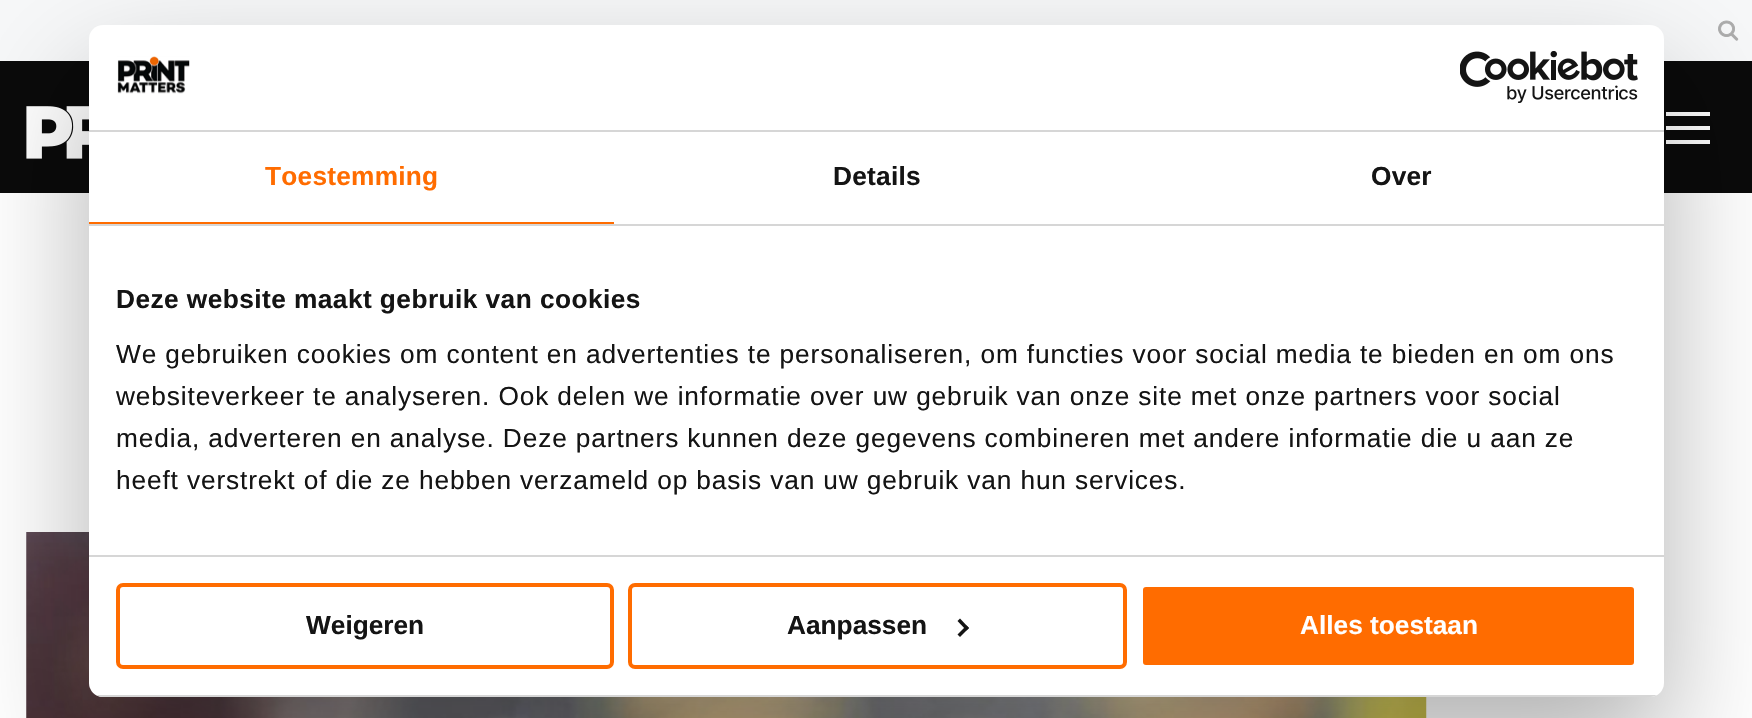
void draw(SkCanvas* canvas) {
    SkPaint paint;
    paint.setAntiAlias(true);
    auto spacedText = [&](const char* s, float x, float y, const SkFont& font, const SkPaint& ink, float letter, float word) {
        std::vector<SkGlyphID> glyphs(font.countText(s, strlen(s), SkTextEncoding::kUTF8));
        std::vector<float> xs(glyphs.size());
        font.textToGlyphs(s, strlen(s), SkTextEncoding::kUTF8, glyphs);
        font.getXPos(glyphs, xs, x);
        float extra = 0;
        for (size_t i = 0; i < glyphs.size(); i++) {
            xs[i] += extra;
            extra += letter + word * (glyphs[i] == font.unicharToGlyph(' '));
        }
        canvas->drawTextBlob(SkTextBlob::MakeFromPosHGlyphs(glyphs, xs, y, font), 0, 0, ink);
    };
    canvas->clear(0xFFFFFFFF);
    paint.setColor(0xFFF7F8F9);
    canvas->drawRect(SkRect::MakeXYWH(0, 0, 1752, 61), paint);
    canvas->drawImageRect(SkImages::DeferredFromEncodedData(SkData::MakeFromFileName("img1.png")), SkRect::MakeXYWH(1718, 20, 21, 21), SkSamplingOptions());
    paint.setColor(0xFF0A0A0A);
    canvas->drawRect(SkRect::MakeXYWH(0, 61, 1752, 132), paint);
    canvas->drawImageRect(SkImages::DeferredFromEncodedData(SkData::MakeFromFileName("img2.png")), SkRect::MakeXYWH(26, 106, 63, 53), SkSamplingOptions());
    paint.setColor(0xFFFEFEFE);
    canvas->drawRect(SkRect::MakeXYWH(1666, 126, 44, 4), paint);
    canvas->drawRect(SkRect::MakeXYWH(1666, 112, 44, 4), paint);
    canvas->drawRect(SkRect::MakeXYWH(1666, 140, 44, 4), paint);
    canvas->drawImageRect(SkImages::DeferredFromEncodedData(SkData::MakeFromFileName("img5.png")), SkRect::MakeXYWH(26, 532, 1401, 186), SkSamplingOptions());
    paint.setColor(0x4D000000);
    paint.setMaskFilter(SkMaskFilter::MakeBlur(kNormal_SkBlurStyle, 59.5f));
    canvas->drawRoundRect(SkRect::MakeXYWH(89, 81, 1575, 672), 14, 14, paint);
    paint.setMaskFilter(nullptr);
    paint.setColor(0xFFFFFFFF);
    canvas->drawRoundRect(SkRect::MakeXYWH(89, 25, 1575, 672), 14, 14, paint);
    paint.setColor(0xFFD6D6D6);
    canvas->drawRect(SkRect::MakeXYWH(89, 130, 1575, 2), paint);
    canvas->drawImageRect(SkImages::DeferredFromEncodedData(SkData::MakeFromFileName("img3.png")), SkRect::MakeXYWH(117, 56, 73, 38), SkSamplingOptions());
    canvas->drawImageRect(SkImages::DeferredFromEncodedData(SkData::MakeFromFileName("img4.png")), SkRect::MakeXYWH(1460, 51, 178, 52), SkSamplingOptions());
    canvas->drawRect(SkRect::MakeXYWH(89, 224, 1575, 2), paint);
    paint.setColor(0xFFFF6C00);
    canvas->drawRect(SkRect::MakeXYWH(89, 222, 525, 2), paint);
    SkFont font1(fontMgr->matchFamilyStyle("Liberation Sans", SkFontStyle::Bold()), 26.25f);
    font1.setSubpixel(true);
    spacedText("Toestemming", 265, 185, font1, paint, 0.25f, 0);
    paint.setColor(0xFF141414);
    spacedText("Details", 833, 185, font1, paint, 0.25f, 0);
    spacedText("Over", 1371, 185, font1, paint, 0.25f, 0);
    paint.setColor(0xFFD6D6D6);
    canvas->drawRect(SkRect::MakeXYWH(89, 555, 1575, 2), paint);
    paint.setColor(0xFF141414);
    spacedText("Deze website maakt gebruik van cookies", 116, 308, font1, paint, 0.45f, 0);
    SkFont font2(fontMgr->matchFamilyStyle("Liberation Sans", SkFontStyle::Normal()), 26.25f);
    font2.setSubpixel(true);
    spacedText("We gebruiken cookies om content en advertenties te personaliseren, om functies voor social media te bieden en om ons", 116, 363, font2, paint, 0.88f, 0);
    spacedText("websiteverkeer te analyseren. Ook delen we informatie over uw gebruik van onze site met onze partners voor social", 116, 405, font2, paint, 0.88f, 0);
    spacedText("media, adverteren en analyse. Deze partners kunnen deze gegevens combineren met andere informatie die u aan ze", 116, 447, font2, paint, 0.88f, 0);
    spacedText("heeft verstrekt of die ze hebben verzameld op basis van uw gebruik van hun services.", 116, 489, font2, paint, 0.88f, 0);
    canvas->save();
    canvas->clipPath(SkPathBuilder().moveTo(103, 25).lineTo(1650, 25).cubicTo(1657.5f, 25, 1664, 31.5f, 1664, 39).lineTo(1664, 683).cubicTo(1664, 690.5f, 1657.5f, 697, 1650, 697).lineTo(103, 697).cubicTo(95.5f, 697, 89, 690.5f, 89, 683).lineTo(89, 39).cubicTo(89, 31.5f, 95.5f, 25, 103, 25).close().detach(), true);
    paint.setColor(0xFFD6D6D6);
    canvas->drawRect(SkRect::MakeXYWH(89, 695, 1575, 2), paint);
    canvas->restore();
    paint.setStyle(SkPaint::kStroke_Style);
    paint.setStrokeWidth(4);
    paint.setColor(0xFFFF6C00);
    canvas->drawRoundRect(SkRect::MakeXYWH(118, 585, 494, 82), 5, 5, paint);
    paint.setStyle(SkPaint::kFill_Style);
    paint.setColor(0xFF141414);
    canvas->drawString("Weigeren", 306, 634, font1, paint);
    paint.setStyle(SkPaint::kStroke_Style);
    paint.setColor(0xFFFF6C00);
    canvas->drawRoundRect(SkRect::MakeXYWH(630, 585, 495, 82), 5, 5, paint);
    paint.setStyle(SkPaint::kFill_Style);
    paint.setColor(0xFF141414);
    canvas->drawString("Aanpassen", 787, 634, font1, paint);
    canvas->drawPath(SkPathBuilder().moveTo(960, 618.5f).lineTo(969, 628).lineTo(966.5f, 630.5f).lineTo(957.5f, 621).close().detach(), paint);
    canvas->drawPath(SkPathBuilder().moveTo(966.5f, 625.5f).lineTo(969, 628).lineTo(960, 637).lineTo(957.5f, 634.5f).close().detach(), paint);
    paint.setColor(0xFFFF6C00);
    canvas->drawRoundRect(SkRect::MakeXYWH(1141, 585, 495, 82), 5, 5, paint);
    paint.setStyle(SkPaint::kStroke_Style);
    paint.setColor(0xFFFFFFFF);
    canvas->drawRoundRect(SkRect::MakeXYWH(1141, 585, 495, 82), 5, 5, paint);
    paint.setStyle(SkPaint::kFill_Style);
    canvas->drawString("Alles toestaan", 1300, 634, font1, paint);
}
